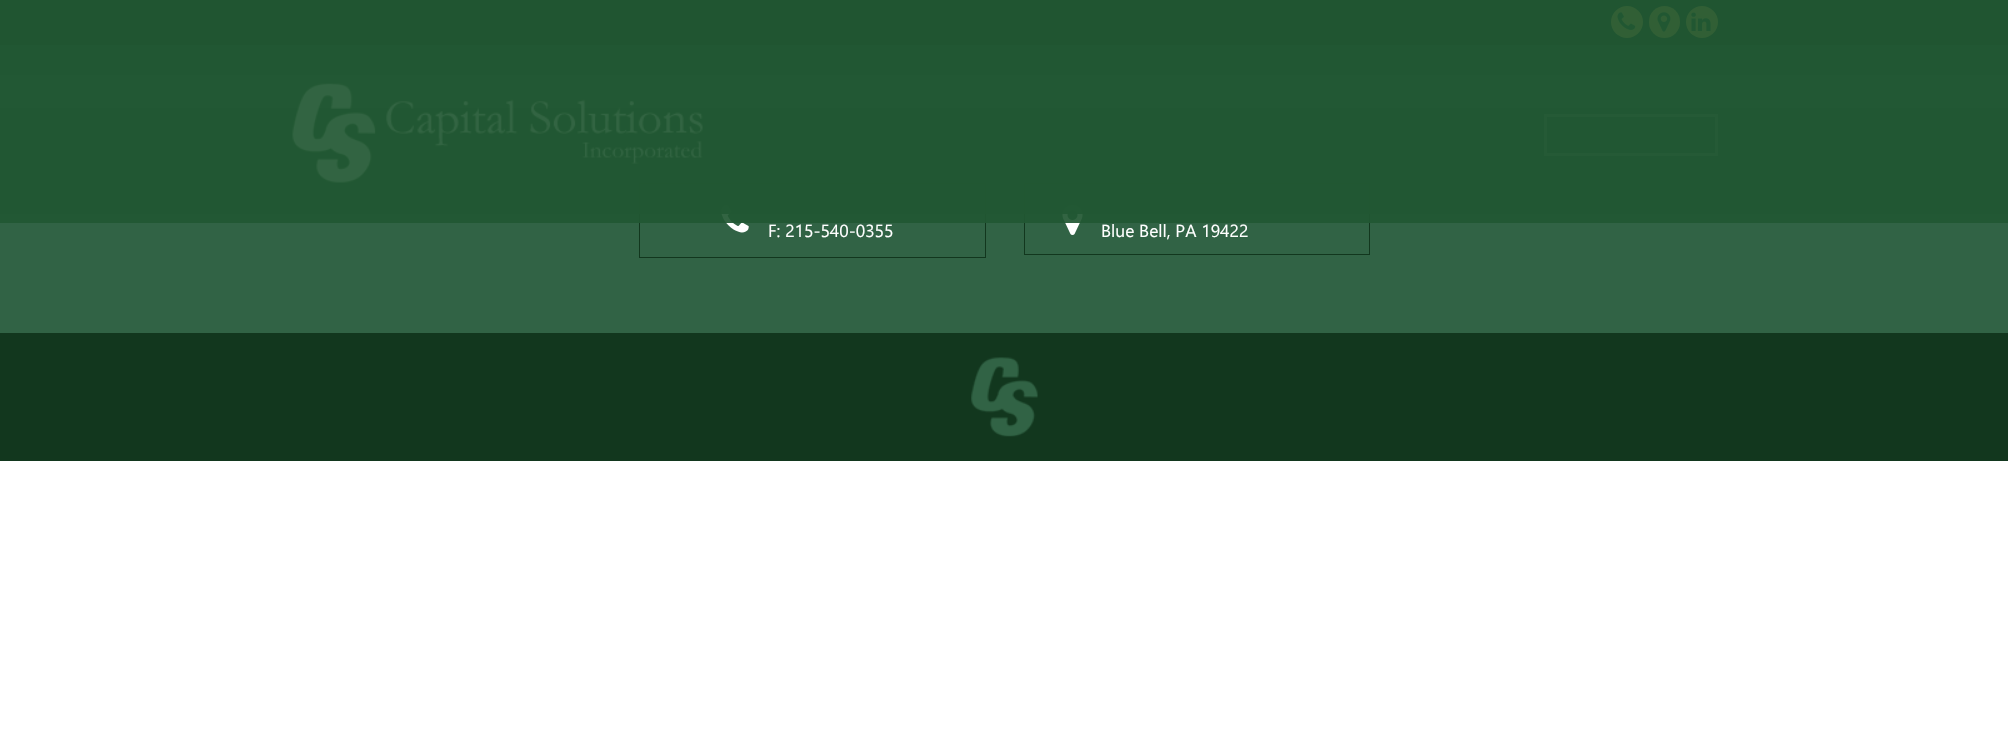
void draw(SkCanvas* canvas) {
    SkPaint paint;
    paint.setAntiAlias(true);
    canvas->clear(0xFFFFFFFF);
    paint.setColor(0xFF316345);
    canvas->drawRect(SkRect::MakeXYWH(0, 45, 2008, 30), paint);
    canvas->drawRect(SkRect::MakeXYWH(0, 108, 2008, 225), paint);
    paint.setStyle(SkPaint::kStroke_Style);
    paint.setStrokeWidth(1);
    paint.setColor(0xFF12371E);
    canvas->drawRect(SkRect::MakeXYWH(639.5f, 183.5f, 346, 74), paint);
    canvas->drawImageRect(SkImages::DeferredFromEncodedData(SkData::MakeFromFileName("img5.png")), SkRect::MakeXYWH(721, 205, 28, 28), SkSamplingOptions());
    canvas->drawRect(SkRect::MakeXYWH(1024.5f, 183.5f, 345, 71), paint);
    canvas->drawImageRect(SkImages::DeferredFromEncodedData(SkData::MakeFromFileName("img6.png")), SkRect::MakeXYWH(1062, 205, 21, 30), SkSamplingOptions());
    paint.setStyle(SkPaint::kFill_Style);
    paint.setColor(0xEB215732);
    canvas->drawRect(SkRect::MakeXYWH(0, 45, 2008, 178), paint);
    paint.setColor(0xFF12371E);
    canvas->drawRect(SkRect::MakeXYWH(0, 0, 2008, 45), paint);
    paint.setColor(0xFFE9BB51);
    canvas->drawCircle(1627, 22, 16, paint);
    canvas->drawImageRect(SkImages::DeferredFromEncodedData(SkData::MakeFromFileName("img1.png")), SkRect::MakeXYWH(1617, 12, 19, 18), SkSamplingOptions());
    canvas->drawRoundRect(SkRect::MakeXYWH(1649, 6, 31, 32), 15.5f, 15.5f, paint);
    canvas->drawImageRect(SkImages::DeferredFromEncodedData(SkData::MakeFromFileName("img2.png")), SkRect::MakeXYWH(1657, 12, 14, 20), SkSamplingOptions());
    canvas->drawCircle(1702, 22, 16, paint);
    canvas->drawImageRect(SkImages::DeferredFromEncodedData(SkData::MakeFromFileName("img3.png")), SkRect::MakeXYWH(1691, 12, 20, 19), SkSamplingOptions());
    canvas->drawImageRect(SkImages::DeferredFromEncodedData(SkData::MakeFromFileName("img4.png")), SkRect::MakeXYWH(292, 83, 411, 100), SkSamplingOptions());
    paint.setStyle(SkPaint::kStroke_Style);
    paint.setStrokeWidth(3);
    paint.setColor(0xFF557960);
    canvas->drawRect(SkRect::MakeXYWH(1545.5f, 115.5f, 171, 39), paint);
    paint.setStyle(SkPaint::kFill_Style);
    paint.setColor(0xEB215732);
    canvas->drawRect(SkRect::MakeXYWH(0, 0, 2008, 214), paint);
    SkFont font1(fontMgr->matchFamilyStyle("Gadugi", SkFontStyle::Normal()), 17.5f);
    font1.setSubpixel(true);
    paint.setColor(0xFFFFFFFF);
    canvas->drawString("F: 215-540-0355", 768, 237, font1, paint);
    canvas->drawString("Blue Bell, PA 19422", 1101, 237, font1, paint);
    paint.setColor(0xFF12371E);
    canvas->drawRect(SkRect::MakeXYWH(0, 333, 2008, 128), paint);
    canvas->drawImageRect(SkImages::DeferredFromEncodedData(SkData::MakeFromFileName("img7.png")), SkRect::MakeXYWH(971, 357, 67, 80), SkSamplingOptions());
}
